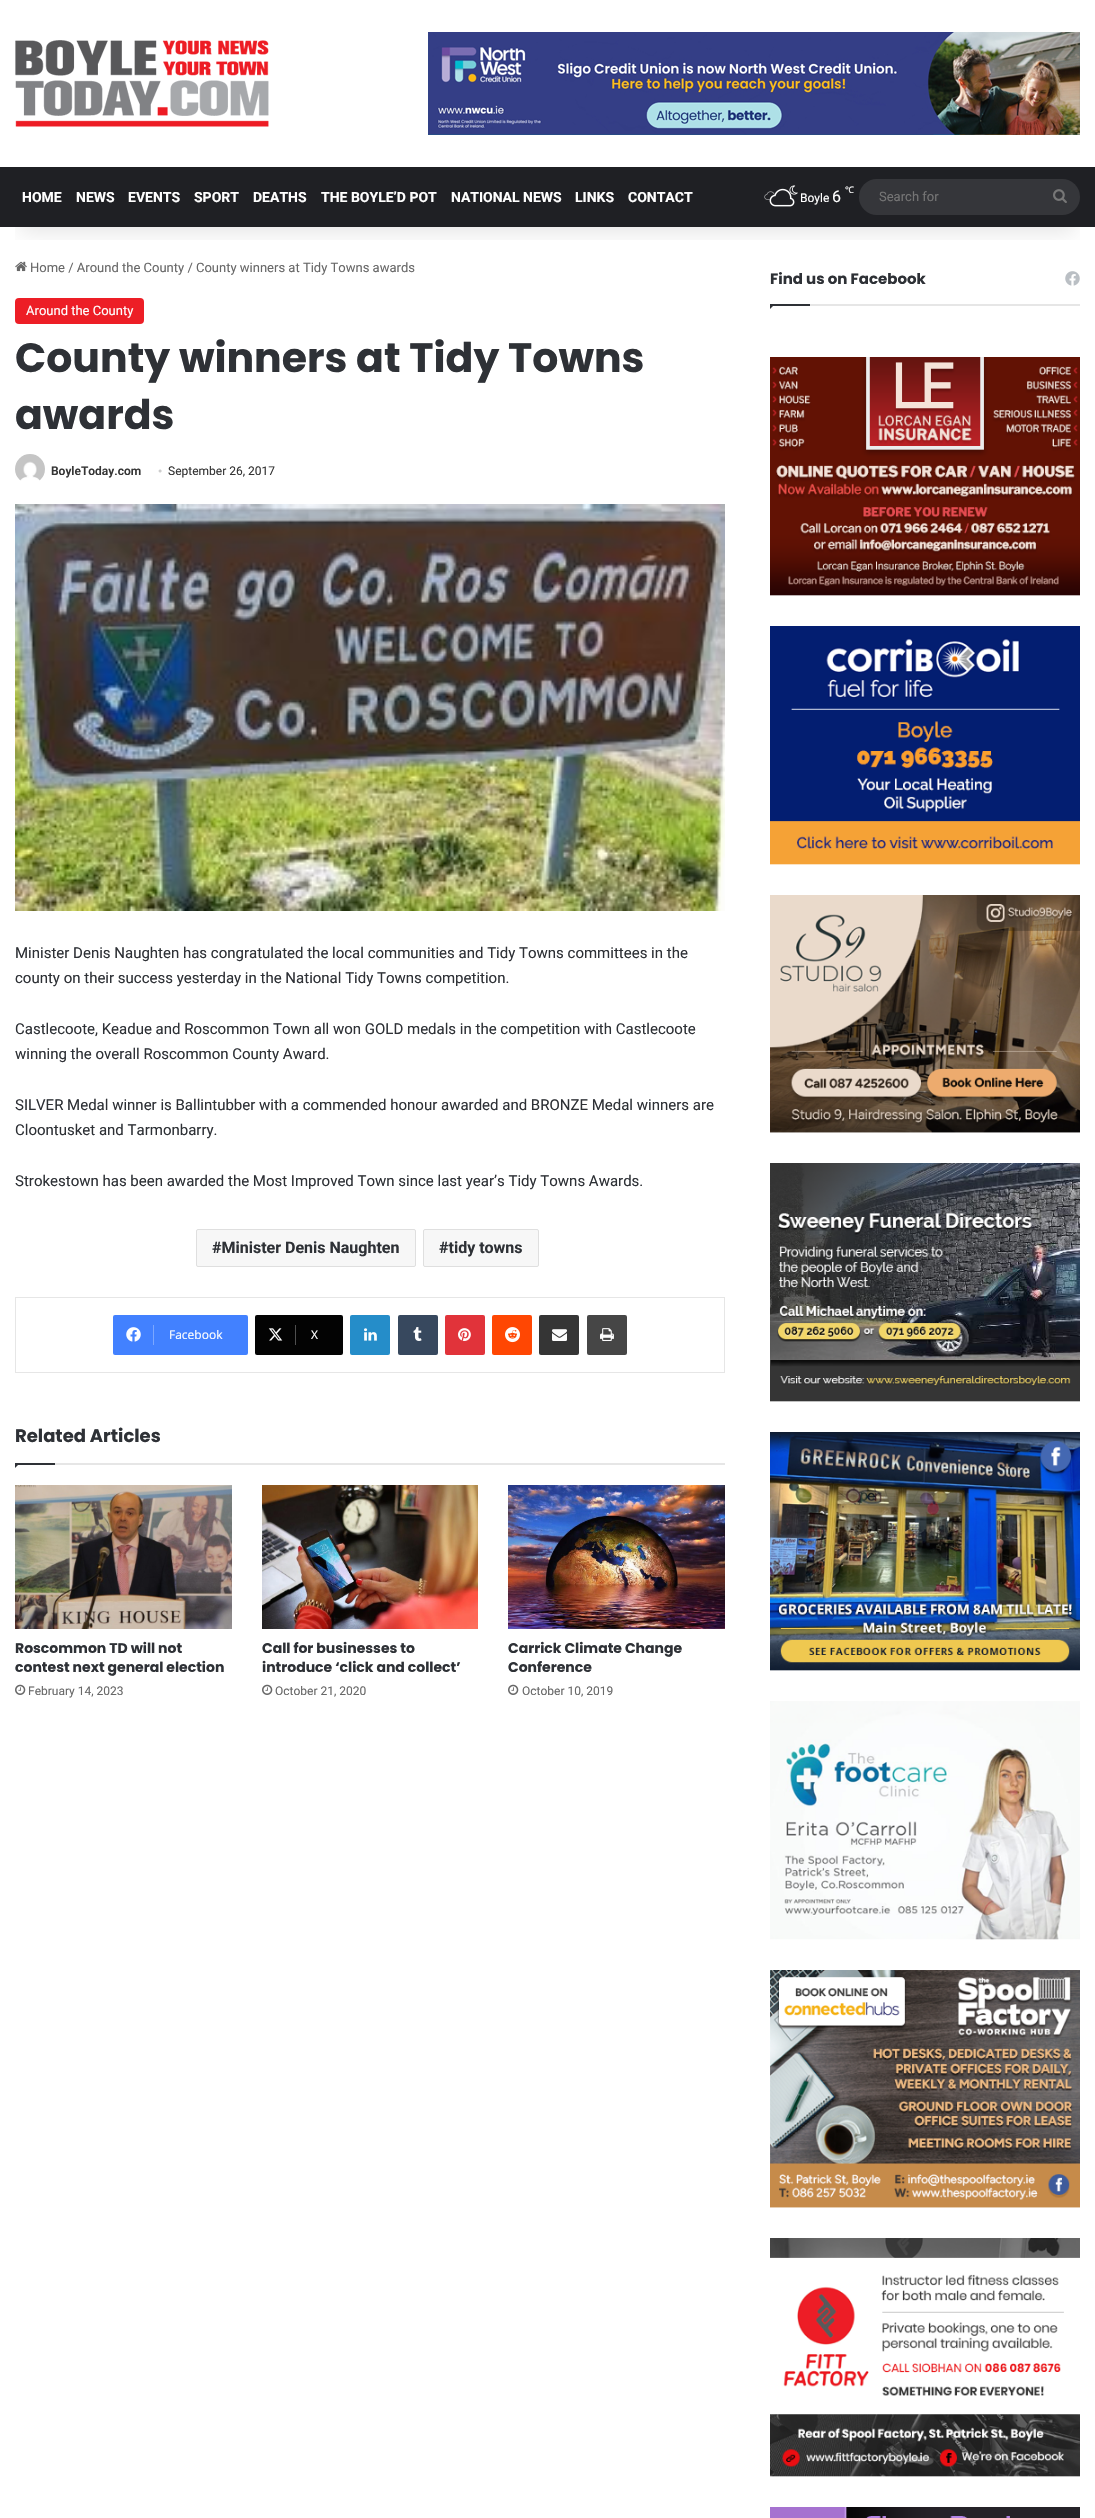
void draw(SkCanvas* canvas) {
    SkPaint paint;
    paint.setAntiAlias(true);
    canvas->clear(0xFFFFFFFF);
    canvas->drawImageRect(SkImages::DeferredFromEncodedData(SkData::MakeFromFileName("img8.png")), SkRect::MakeXYWH(15, 261, 12, 11), SkSamplingOptions());
    canvas->save();
    canvas->clipRect(SkRect::MakeXYWH(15, 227, 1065, 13));
    paint.setColor(0x1A000000);
    paint.setMaskFilter(SkMaskFilter::MakeBlur(kNormal_SkBlurStyle, 10));
    canvas->drawRect(SkRect::MakeXYWH(20, 45, 1055, 187), paint);
    paint.setMaskFilter(nullptr);
    canvas->restore();
    canvas->drawImageRect(SkImages::DeferredFromEncodedData(SkData::MakeFromFileName("img1.png")), SkRect::MakeXYWH(15, 40, 254, 87), SkSamplingOptions());
    canvas->drawImageRect(SkImages::DeferredFromEncodedData(SkData::MakeFromFileName("img2.png")), SkRect::MakeXYWH(428, 32, 652, 103), SkSamplingOptions());
    paint.setColor(0xFF1F2024);
    canvas->drawRect(SkRect::MakeXYWH(0, 167, 1095, 60), paint);
    SkFont font1(fontMgr->matchFamilyStyle("Roboto", SkFontStyle::Bold()), 14);
    font1.setSubpixel(true);
    paint.setColor(0xFFFFFFFF);
    canvas->drawString("HOME", 22, 202, font1, paint);
    canvas->drawString("NEWS", 76, 202, font1, paint);
    canvas->drawString("EVENTS", 128, 202, font1, paint);
    canvas->drawString("SPORT", 194, 202, font1, paint);
    canvas->drawString("DEATHS", 253, 202, font1, paint);
    canvas->drawString("THE BOYLE’D POT", 321, 202, font1, paint);
    canvas->drawString("NATIONAL NEWS", 451, 202, font1, paint);
    canvas->drawString("LINKS", 575, 202, font1, paint);
    canvas->drawString("CONTACT", 628, 202, font1, paint);
    canvas->drawImageRect(SkImages::DeferredFromEncodedData(SkData::MakeFromFileName("img3.png")), SkRect::MakeXYWH(789, 185, 9, 10), SkSamplingOptions());
    canvas->drawImageRect(SkImages::DeferredFromEncodedData(SkData::MakeFromFileName("img5.png")), SkRect::MakeXYWH(764, 191, 11, 9), SkSamplingOptions());
    canvas->drawImageRect(SkImages::DeferredFromEncodedData(SkData::MakeFromFileName("img6.png")), SkRect::MakeXYWH(769, 191, 22, 9), SkSamplingOptions());
    canvas->drawImageRect(SkImages::DeferredFromEncodedData(SkData::MakeFromFileName("img4.png")), SkRect::MakeXYWH(769, 188, 26, 19), SkSamplingOptions());
    SkFont font2(fontMgr->matchFamilyStyle("Roboto", SkFontStyle::Normal()), 12);
    font2.setSubpixel(true);
    canvas->drawString("Boyle", 800, 202, font2, paint);
    SkFont font3(fontMgr->matchFamilyStyle("Roboto", SkFontStyle::Normal()), 16);
    font3.setSubpixel(true);
    canvas->drawString("6", 832, 202, font3, paint);
    SkFont font4(fontMgr->matchFamilyStyle("Noto Sans", SkFontStyle::Normal()), 9);
    font4.setSubpixel(true);
    canvas->drawString("℃", 845, 193, font4, paint);
    paint.setColor(0xFF35363A);
    canvas->drawRoundRect(SkRect::MakeXYWH(859, 179, 221, 36), 18, 18, paint);
    SkFont font5(fontMgr->matchFamilyStyle("Roboto", SkFontStyle::Normal()), 13);
    font5.setSubpixel(true);
    paint.setColor(0xFF757575);
    canvas->drawString("Search for", 879, 201, font5, paint);
    canvas->drawImageRect(SkImages::DeferredFromEncodedData(SkData::MakeFromFileName("img7.png")), SkRect::MakeXYWH(1053, 189, 14, 14), SkSamplingOptions());
    paint.setColor(0xFF686868);
    canvas->drawString("Home / Around the County / County winners at Tidy Towns awards", 30, 272, font5, paint);
    paint.setColor(0xFFED1E26);
    canvas->drawRoundRect(SkRect::MakeXYWH(15, 298, 129, 26), 4, 4, paint);
    paint.setColor(0xFFFFFFFF);
    canvas->drawString("Around the County", 26, 315, font5, paint);
    SkFont font6(fontMgr->matchFamilyStyle("Poppins", SkFontStyle::Bold()), 41);
    font6.setSubpixel(true);
    paint.setColor(0xFF2E3136);
    canvas->drawString("County winners at Tidy Towns", 15, 372, font6, paint);
    canvas->drawString("awards", 15, 429, font6, paint);
    canvas->drawImageRect(SkImages::DeferredFromEncodedData(SkData::MakeFromFileName("img9.png")), SkRect::MakeXYWH(15, 454, 30, 27), SkSamplingOptions());
    SkFont font7(fontMgr->matchFamilyStyle("Roboto", SkFontStyle(600, SkFontStyle::kNormal_Width, SkFontStyle::kUpright_Slant)), 12);
    font7.setSubpixel(true);
    paint.setColor(0xFF353535);
    canvas->drawString("BoyleToday.com", 51, 475, font7, paint);
    SkFont font8(fontMgr->matchFamilyStyle("Liberation Serif", SkFontStyle::Normal()), 12);
    font8.setSubpixel(true);
    paint.setColor(0xFFCDCDCD);
    canvas->drawString("•", 158, 475, font8, paint);
    paint.setColor(0xFF353535);
    canvas->drawString("September 26, 2017", 168, 475, font2, paint);
    canvas->drawImageRect(SkImages::DeferredFromEncodedData(SkData::MakeFromFileName("img10.png")), SkRect::MakeXYWH(15, 504, 710, 407), SkSamplingOptions());
    SkFont font9(fontMgr->matchFamilyStyle("Roboto", SkFontStyle::Normal()), 15);
    font9.setSubpixel(true);
    paint.setColor(0xFF2E3136);
    canvas->drawString("Minister Denis Naughten has congratulated the local communities and Tidy Towns committees in the", 15, 958, font9, paint);
    canvas->drawString("county on their success yesterday in the National Tidy Towns competition.", 15, 983, font9, paint);
    canvas->drawString("Castlecoote, Keadue and Roscommon Town all won GOLD medals in the competition with Castlecoote", 15, 1034, font9, paint);
    canvas->drawString("winning the overall Roscommon County Award.", 15, 1059, font9, paint);
    canvas->drawString("SILVER Medal winner is Ballintubber with a commended honour awarded and BRONZE Medal winners are", 15, 1110, font9, paint);
    canvas->drawString("Cloontusket and Tarmonbarry.", 15, 1135, font9, paint);
    canvas->drawString("Strokestown has been awarded the Most Improved Town since last year’s Tidy Towns Awards.", 15, 1186, font9, paint);
    paint.setColor(0xFFF7F7F7);
    canvas->drawRoundRect(SkRect::MakeXYWH(196.5f, 1229.5f, 219, 37), 1.5f, 1.5f, paint);
    paint.setStyle(SkPaint::kStroke_Style);
    paint.setStrokeWidth(1);
    paint.setColor(0xFFDFDFDF);
    canvas->drawRoundRect(SkRect::MakeXYWH(196.5f, 1229.5f, 219, 37), 1.5f, 1.5f, paint);
    SkFont font10(fontMgr->matchFamilyStyle("Roboto", SkFontStyle::Bold()), 16);
    font10.setSubpixel(true);
    paint.setStyle(SkPaint::kFill_Style);
    paint.setColor(0xFF2E3136);
    canvas->drawString("#Minister Denis Naughten", 212, 1253, font10, paint);
    paint.setColor(0xFFF7F7F7);
    canvas->drawRoundRect(SkRect::MakeXYWH(423.5f, 1229.5f, 115, 37), 1.5f, 1.5f, paint);
    paint.setStyle(SkPaint::kStroke_Style);
    paint.setColor(0xFFDFDFDF);
    canvas->drawRoundRect(SkRect::MakeXYWH(423.5f, 1229.5f, 115, 37), 1.5f, 1.5f, paint);
    paint.setStyle(SkPaint::kFill_Style);
    paint.setColor(0xFF2E3136);
    canvas->drawString("#tidy towns", 439, 1253, font10, paint);
    paint.setStyle(SkPaint::kStroke_Style);
    paint.setColor(0xFFE6E6E6);
    canvas->drawRect(SkRect::MakeXYWH(15.5f, 1297.5f, 709, 75), paint);
    paint.setStyle(SkPaint::kFill_Style);
    paint.setColor(0xFF4281FF);
    canvas->drawRoundRect(SkRect::MakeXYWH(113, 1315, 135, 40), 2, 2, paint);
    canvas->drawImageRect(SkImages::DeferredFromEncodedData(SkData::MakeFromFileName("img11.png")), SkRect::MakeXYWH(126, 1327, 15, 15), SkSamplingOptions());
    paint.setColor(0xFF7BA7FF);
    canvas->drawRect(SkRect::MakeXYWH(153, 1325, 1, 20), paint);
    SkFont font11(fontMgr->matchFamilyStyle("Open Sans", SkFontStyle::Normal()), 12);
    font11.setSubpixel(true);
    paint.setColor(0xFFFFFFFF);
    canvas->drawString("Facebook", 169, 1339, font11, paint);
    paint.setColor(0xFF030303);
    canvas->drawRoundRect(SkRect::MakeXYWH(255, 1315, 88, 40), 2, 2, paint);
    canvas->drawImageRect(SkImages::DeferredFromEncodedData(SkData::MakeFromFileName("img12.png")), SkRect::MakeXYWH(268, 1328, 15, 13), SkSamplingOptions());
    paint.setColor(0xFF4F4F4F);
    canvas->drawRect(SkRect::MakeXYWH(295, 1325, 1, 20), paint);
    paint.setColor(0xFFFFFFFF);
    canvas->drawString("X", 311, 1339, font11, paint);
    paint.setColor(0xFF258DC9);
    canvas->drawRoundRect(SkRect::MakeXYWH(350, 1315, 40, 40), 2, 2, paint);
    canvas->drawImageRect(SkImages::DeferredFromEncodedData(SkData::MakeFromFileName("img13.png")), SkRect::MakeXYWH(364, 1328, 13, 13), SkSamplingOptions());
    paint.setColor(0xFF37485E);
    canvas->drawRoundRect(SkRect::MakeXYWH(398, 1315, 40, 40), 2, 2, paint);
    canvas->drawImageRect(SkImages::DeferredFromEncodedData(SkData::MakeFromFileName("img14.png")), SkRect::MakeXYWH(413, 1327, 9, 14), SkSamplingOptions());
    paint.setColor(0xFFE1333A);
    canvas->drawRoundRect(SkRect::MakeXYWH(445, 1315, 40, 40), 2, 2, paint);
    canvas->drawImageRect(SkImages::DeferredFromEncodedData(SkData::MakeFromFileName("img15.png")), SkRect::MakeXYWH(458, 1328, 13, 13), SkSamplingOptions());
    paint.setColor(0xFFFF4703);
    canvas->drawRoundRect(SkRect::MakeXYWH(492, 1315, 40, 40), 2, 2, paint);
    canvas->drawImageRect(SkImages::DeferredFromEncodedData(SkData::MakeFromFileName("img16.png")), SkRect::MakeXYWH(505, 1327, 15, 16), SkSamplingOptions());
    paint.setColor(0xFF353535);
    canvas->drawRoundRect(SkRect::MakeXYWH(539, 1315, 40, 40), 2, 2, paint);
    canvas->drawImageRect(SkImages::DeferredFromEncodedData(SkData::MakeFromFileName("img17.png")), SkRect::MakeXYWH(552, 1329, 15, 12), SkSamplingOptions());
    paint.setColor(0xFF464646);
    canvas->drawRoundRect(SkRect::MakeXYWH(587, 1315, 40, 40), 2, 2, paint);
    canvas->drawImageRect(SkImages::DeferredFromEncodedData(SkData::MakeFromFileName("img18.png")), SkRect::MakeXYWH(600, 1328, 14, 13), SkSamplingOptions());
    paint.setColor(0xFFE6E6E6);
    canvas->drawRect(SkRect::MakeXYWH(55, 1463, 670, 2), paint);
    SkFont font12(fontMgr->matchFamilyStyle("Poppins", SkFontStyle::Bold()), 18);
    font12.setSubpixel(true);
    paint.setColor(0xFF2E3136);
    canvas->drawString("Related Articles", 15, 1442, font12, paint);
    canvas->drawPath(SkPathBuilder().moveTo(15, 1463).lineTo(20, 1463).lineTo(15, 1468).close().detach(), paint);
    canvas->drawRect(SkRect::MakeXYWH(15, 1463, 40, 2), paint);
    canvas->drawImageRect(SkImages::DeferredFromEncodedData(SkData::MakeFromFileName("img19.png")), SkRect::MakeXYWH(15, 1485, 217, 144), SkSamplingOptions());
    SkFont font13(fontMgr->matchFamilyStyle("Poppins", SkFontStyle::Bold()), 14);
    font13.setSubpixel(true);
    canvas->drawString("Roscommon TD will not", 15, 1653, font13, paint);
    canvas->drawString("contest next general election", 15, 1672, font13, paint);
    canvas->drawImageRect(SkImages::DeferredFromEncodedData(SkData::MakeFromFileName("img20.png")), SkRect::MakeXYWH(15, 1684, 11, 11), SkSamplingOptions());
    paint.setColor(0xFF686868);
    canvas->drawString("February 14, 2023", 28, 1695, font2, paint);
    canvas->drawImageRect(SkImages::DeferredFromEncodedData(SkData::MakeFromFileName("img21.png")), SkRect::MakeXYWH(262, 1485, 216, 144), SkSamplingOptions());
    paint.setColor(0xFF2E3136);
    canvas->drawString("Call for businesses to", 262, 1653, font13, paint);
    canvas->drawString("introduce ‘click and collect’", 262, 1672, font13, paint);
    canvas->drawImageRect(SkImages::DeferredFromEncodedData(SkData::MakeFromFileName("img20.png")), SkRect::MakeXYWH(262, 1684, 11, 11), SkSamplingOptions());
    paint.setColor(0xFF686868);
    canvas->drawString("October 21, 2020", 275, 1695, font2, paint);
    canvas->drawImageRect(SkImages::DeferredFromEncodedData(SkData::MakeFromFileName("img22.png")), SkRect::MakeXYWH(508, 1485, 217, 144), SkSamplingOptions());
    paint.setColor(0xFF2E3136);
    canvas->drawString("Carrick Climate Change", 508, 1653, font13, paint);
    canvas->drawString("Conference", 508, 1672, font13, paint);
    canvas->drawImageRect(SkImages::DeferredFromEncodedData(SkData::MakeFromFileName("img20.png")), SkRect::MakeXYWH(508, 1684, 11, 11), SkSamplingOptions());
    paint.setColor(0xFF686868);
    canvas->drawString("October 10, 2019", 522, 1695, font2, paint);
    paint.setColor(0xFFE6E6E6);
    canvas->drawRect(SkRect::MakeXYWH(810, 304, 270, 2), paint);
    SkFont font14(fontMgr->matchFamilyStyle("Poppins", SkFontStyle::Bold()), 15);
    font14.setSubpixel(true);
    paint.setColor(0xFF2E3136);
    canvas->drawString("Find us on Facebook", 770, 284, font14, paint);
    canvas->drawImageRect(SkImages::DeferredFromEncodedData(SkData::MakeFromFileName("img23.png")), SkRect::MakeXYWH(1065, 271, 15, 15), SkSamplingOptions());
    canvas->drawPath(SkPathBuilder().moveTo(770, 304).lineTo(775, 304).lineTo(770, 309).close().detach(), paint);
    canvas->drawRect(SkRect::MakeXYWH(770, 304, 40, 2), paint);
    canvas->drawImageRect(SkImages::DeferredFromEncodedData(SkData::MakeFromFileName("img24.png")), SkRect::MakeXYWH(770, 357, 310, 239), SkSamplingOptions());
    canvas->drawImageRect(SkImages::DeferredFromEncodedData(SkData::MakeFromFileName("img25.png")), SkRect::MakeXYWH(770, 626, 310, 239), SkSamplingOptions());
    canvas->drawImageRect(SkImages::DeferredFromEncodedData(SkData::MakeFromFileName("img26.png")), SkRect::MakeXYWH(770, 895, 310, 238), SkSamplingOptions());
    canvas->drawImageRect(SkImages::DeferredFromEncodedData(SkData::MakeFromFileName("img27.png")), SkRect::MakeXYWH(770, 1163, 310, 239), SkSamplingOptions());
    canvas->drawImageRect(SkImages::DeferredFromEncodedData(SkData::MakeFromFileName("img28.png")), SkRect::MakeXYWH(770, 1432, 310, 239), SkSamplingOptions());
    canvas->drawImageRect(SkImages::DeferredFromEncodedData(SkData::MakeFromFileName("img29.png")), SkRect::MakeXYWH(770, 1701, 310, 239), SkSamplingOptions());
    canvas->drawImageRect(SkImages::DeferredFromEncodedData(SkData::MakeFromFileName("img30.png")), SkRect::MakeXYWH(770, 1970, 310, 238), SkSamplingOptions());
    canvas->drawImageRect(SkImages::DeferredFromEncodedData(SkData::MakeFromFileName("img31.png")), SkRect::MakeXYWH(770, 2238, 310, 239), SkSamplingOptions());
    canvas->drawImageRect(SkImages::DeferredFromEncodedData(SkData::MakeFromFileName("img32.png")), SkRect::MakeXYWH(770, 2507, 310, 11), SkSamplingOptions());
}
